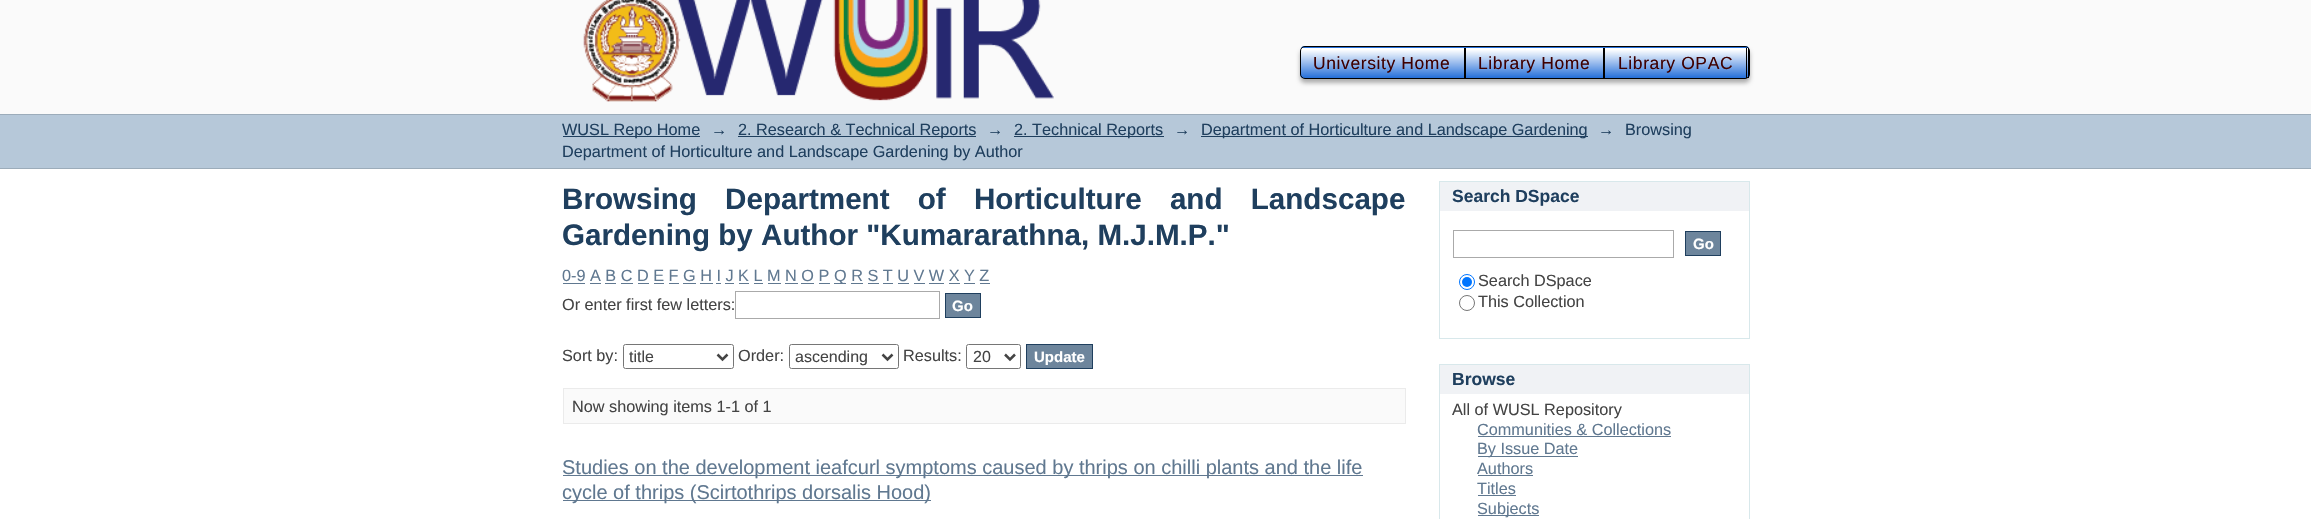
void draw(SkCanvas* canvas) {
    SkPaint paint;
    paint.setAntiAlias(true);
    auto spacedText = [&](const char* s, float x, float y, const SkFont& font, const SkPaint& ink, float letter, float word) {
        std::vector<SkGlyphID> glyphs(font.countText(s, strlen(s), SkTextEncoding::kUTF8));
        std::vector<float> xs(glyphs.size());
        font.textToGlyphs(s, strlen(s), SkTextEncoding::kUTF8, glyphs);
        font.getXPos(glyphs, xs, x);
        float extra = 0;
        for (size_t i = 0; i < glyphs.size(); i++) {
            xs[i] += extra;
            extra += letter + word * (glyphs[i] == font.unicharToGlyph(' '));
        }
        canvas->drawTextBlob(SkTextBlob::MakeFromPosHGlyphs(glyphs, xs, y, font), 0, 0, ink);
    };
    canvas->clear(0xFFFFFFFF);
    paint.setColor(0xFFFAFAFA);
    canvas->drawRect(SkRect::MakeXYWH(0, 0, 2311, 114), paint);
    canvas->drawImageRect(SkImages::DeferredFromEncodedData(SkData::MakeFromFileName("img1.png")), SkRect::MakeXYWH(583, 0, 471, 102), SkSamplingOptions());
    paint.setColor(0x4D000000);
    paint.setMaskFilter(SkMaskFilter::MakeBlur(kNormal_SkBlurStyle, 2));
    canvas->drawRoundRect(SkRect::MakeXYWH(1300, 50, 450, 33), 5, 5, paint);
    paint.setMaskFilter(nullptr);
    canvas->save();
    canvas->clipPath(SkPathBuilder().moveTo(1305, 46).lineTo(1745, 46).cubicTo(1748, 46, 1750, 48, 1750, 51).lineTo(1750, 74).cubicTo(1750, 77, 1748, 79, 1745, 79).lineTo(1305, 79).cubicTo(1302, 79, 1300, 77, 1300, 74).lineTo(1300, 51).cubicTo(1300, 48, 1302, 46, 1305, 46).close().detach(), true);
    {
        const SkColor colors[] = {0xFFFFFFFF, 0xFF256FD9};
        const float stops[] = {0.05f, 1};
        const SkPoint ends[] = {{1301, 18}, {1301, 48}};
        paint.setShader(SkGradientShader::MakeLinear(ends, colors, stops, 2, SkTileMode::kClamp));
        paint.setAlpha(255);
    }
    canvas->drawRect(SkRect::MakeXYWH(1300, 46, 450, 2), paint);
    {
        const SkColor colors[] = {0xFFFFFFFF, 0xFF256FD9};
        const float stops[] = {0.05f, 1};
        const SkPoint ends[] = {{1301, 48}, {1301, 78}};
        paint.setShader(SkGradientShader::MakeLinear(ends, colors, stops, 2, SkTileMode::kClamp));
        paint.setAlpha(255);
    }
    canvas->drawRect(SkRect::MakeXYWH(1300, 48, 450, 30), paint);
    canvas->restore();
    paint.setStyle(SkPaint::kStroke_Style);
    paint.setStrokeWidth(1);
    paint.setShader(nullptr);
    paint.setColor(0xFF000000);
    canvas->drawRoundRect(SkRect::MakeXYWH(1300.5f, 46.5f, 449, 32), 4.5f, 4.5f, paint);
    paint.setStyle(SkPaint::kFill_Style);
    canvas->drawRect(SkRect::MakeXYWH(1464, 48, 2, 30), paint);
    SkFont font1(fontMgr->matchFamilyStyle("Liberation Sans", SkFontStyle::Normal()), 17.5f);
    font1.setSubpixel(true);
    paint.setColor(0xFF3E0000);
    spacedText("University Home", 1313, 69, font1, paint, 0.6f, 0);
    paint.setColor(0xFF000000);
    canvas->drawRect(SkRect::MakeXYWH(1603, 48, 2, 30), paint);
    paint.setColor(0xFF3E0000);
    spacedText("Library Home", 1478, 69, font1, paint, 0.6f, 0);
    paint.setColor(0xFF000000);
    canvas->drawRect(SkRect::MakeXYWH(1748, 48, 1, 30), paint);
    canvas->drawRect(SkRect::MakeXYWH(1746, 48, 1, 30), paint);
    paint.setColor(0xFF3E0000);
    spacedText("Library OPAC", 1618, 69, font1, paint, 0.6f, 0);
    paint.setColor(0xFFB6C8D9);
    canvas->drawRect(SkRect::MakeXYWH(0, 115, 2311, 53), paint);
    paint.setColor(0xFF9CACBA);
    canvas->drawRect(SkRect::MakeXYWH(0, 114, 2311, 1), paint);
    canvas->drawRect(SkRect::MakeXYWH(0, 168, 2311, 1), paint);
    paint.setColor(0xFF1F3F5E);
    canvas->drawRect(SkRect::MakeXYWH(563, 136, 137, 1), paint);
    SkFont font2(fontMgr->matchFamilyStyle("Liberation Sans", SkFontStyle::Normal()), 16.25f);
    font2.setSubpixel(true);
    canvas->drawString("WUSL Repo Home", 562, 135, font2, paint);
    canvas->drawString("→", 711, 135, font2, paint);
    canvas->drawRect(SkRect::MakeXYWH(738, 136, 238, 1), paint);
    canvas->drawString("2. Research & Technical Reports", 738, 135, font2, paint);
    canvas->drawString("→", 987, 135, font2, paint);
    canvas->drawRect(SkRect::MakeXYWH(1014, 136, 150, 1), paint);
    canvas->drawString("2. Technical Reports", 1014, 135, font2, paint);
    canvas->drawString("→", 1174, 135, font2, paint);
    canvas->drawRect(SkRect::MakeXYWH(1201, 136, 387, 1), paint);
    canvas->drawString("Department of Horticulture and Landscape Gardening", 1201, 135, font2, paint);
    canvas->drawString("→", 1598, 135, font2, paint);
    canvas->drawString("Browsing", 1625, 135, font2, paint);
    canvas->drawString("Department of Horticulture and Landscape Gardening by Author", 562, 157, font2, paint);
    SkFont font3(fontMgr->matchFamilyStyle("Liberation Sans", SkFontStyle::Bold()), 29.6f);
    font3.setSubpixel(true);
    spacedText("Browsing Department of Horticulture and Landscape", 562, 209, font3, paint, 0, 20);
    canvas->drawString("Gardening by Author \"Kumararathna, M.J.M.P.\"", 562, 245, font3, paint);
    paint.setColor(0xFF607890);
    canvas->drawString("0-9 A B C D E F G H I J K L M N O P", 562, 281, font2, paint);
    canvas->drawRect(SkRect::MakeXYWH(563, 283, 22, 1), paint);
    canvas->drawRect(SkRect::MakeXYWH(834, 283, 12, 1), paint);
    canvas->drawString("Q R S T U V W X Y Z", 834, 281, font2, paint);
    canvas->drawRect(SkRect::MakeXYWH(590, 283, 11, 1), paint);
    canvas->drawRect(SkRect::MakeXYWH(605, 283, 11, 1), paint);
    canvas->drawRect(SkRect::MakeXYWH(621, 283, 12, 1), paint);
    canvas->drawRect(SkRect::MakeXYWH(638, 283, 11, 1), paint);
    canvas->drawRect(SkRect::MakeXYWH(654, 283, 10, 1), paint);
    canvas->drawRect(SkRect::MakeXYWH(669, 283, 10, 1), paint);
    canvas->drawRect(SkRect::MakeXYWH(683, 283, 13, 1), paint);
    canvas->drawRect(SkRect::MakeXYWH(700, 283, 13, 1), paint);
    canvas->drawRect(SkRect::MakeXYWH(716, 283, 5, 1), paint);
    canvas->drawRect(SkRect::MakeXYWH(725, 283, 9, 1), paint);
    canvas->drawRect(SkRect::MakeXYWH(739, 283, 10, 1), paint);
    canvas->drawRect(SkRect::MakeXYWH(754, 283, 9, 1), paint);
    canvas->drawRect(SkRect::MakeXYWH(768, 283, 13, 1), paint);
    canvas->drawRect(SkRect::MakeXYWH(785, 283, 13, 1), paint);
    canvas->drawRect(SkRect::MakeXYWH(801, 283, 13, 1), paint);
    canvas->drawRect(SkRect::MakeXYWH(819, 283, 11, 1), paint);
    canvas->drawRect(SkRect::MakeXYWH(851, 283, 12, 1), paint);
    canvas->drawRect(SkRect::MakeXYWH(868, 283, 11, 1), paint);
    canvas->drawRect(SkRect::MakeXYWH(883, 283, 10, 1), paint);
    canvas->drawRect(SkRect::MakeXYWH(898, 283, 11, 1), paint);
    canvas->drawRect(SkRect::MakeXYWH(914, 283, 11, 1), paint);
    canvas->drawRect(SkRect::MakeXYWH(929, 283, 15, 1), paint);
    canvas->drawRect(SkRect::MakeXYWH(949, 283, 11, 1), paint);
    canvas->drawRect(SkRect::MakeXYWH(964, 283, 11, 1), paint);
    canvas->drawRect(SkRect::MakeXYWH(980, 283, 10, 1), paint);
    paint.setColor(0xFF444444);
    canvas->drawString("Or enter first few letters:", 562, 310, font2, paint);
    paint.setStyle(SkPaint::kStroke_Style);
    paint.setColor(0xFFAAAAAA);
    canvas->drawRect(SkRect::MakeXYWH(735.5f, 291.5f, 204, 27), paint);
    paint.setStyle(SkPaint::kFill_Style);
    paint.setColor(0xFF6D859C);
    canvas->drawRect(SkRect::MakeXYWH(945.5f, 293.5f, 35, 24), paint);
    paint.setStyle(SkPaint::kStroke_Style);
    paint.setColor(0xFF1F3F5E);
    canvas->drawRect(SkRect::MakeXYWH(945.5f, 293.5f, 35, 24), paint);
    SkFont font4(fontMgr->matchFamilyStyle("Liberation Sans", SkFontStyle::Bold()), 15);
    font4.setSubpixel(true);
    paint.setStyle(SkPaint::kFill_Style);
    paint.setColor(0xFFFFFFFF);
    canvas->drawString("Go", 952, 311, font4, paint);
    paint.setColor(0xFF444444);
    canvas->drawString("Sort by:", 562, 361, font2, paint);
    paint.setStyle(SkPaint::kStroke_Style);
    paint.setColor(0xFF767676);
    canvas->drawRoundRect(SkRect::MakeXYWH(623.5f, 344.5f, 110, 24), 2, 2, paint);
    paint.setStrokeWidth(2.5f);
    paint.setColor(0xFF444444);
    canvas->drawPath(SkPathBuilder().moveTo(717.5f, 354.5f).lineTo(722.5f, 359.5f).lineTo(727.5f, 354.5f).detach(), paint);
    SkFont font5(fontMgr->matchFamilyStyle("Liberation Sans", SkFontStyle::Normal()), 16);
    font5.setSubpixel(true);
    paint.setStyle(SkPaint::kFill_Style);
    canvas->drawString("title", 629, 362, font5, paint);
    canvas->drawString("Order:", 738, 361, font2, paint);
    paint.setStyle(SkPaint::kStroke_Style);
    paint.setStrokeWidth(1);
    paint.setColor(0xFF767676);
    canvas->drawRoundRect(SkRect::MakeXYWH(789.5f, 344.5f, 109, 24), 2, 2, paint);
    paint.setStrokeWidth(2.5f);
    paint.setColor(0xFF444444);
    canvas->drawPath(SkPathBuilder().moveTo(882.5f, 354.5f).lineTo(887.5f, 359.5f).lineTo(892.5f, 354.5f).detach(), paint);
    paint.setStyle(SkPaint::kFill_Style);
    canvas->drawString("ascending", 795, 362, font5, paint);
    canvas->drawString("Results:", 903, 361, font2, paint);
    paint.setStyle(SkPaint::kStroke_Style);
    paint.setStrokeWidth(1);
    paint.setColor(0xFF767676);
    canvas->drawRoundRect(SkRect::MakeXYWH(966.5f, 344.5f, 54, 24), 2, 2, paint);
    paint.setStrokeWidth(2.5f);
    paint.setColor(0xFF444444);
    canvas->drawPath(SkPathBuilder().moveTo(1005, 354.5f).lineTo(1010, 359.5f).lineTo(1015, 354.5f).detach(), paint);
    paint.setStyle(SkPaint::kFill_Style);
    canvas->drawString("20", 973, 362, font5, paint);
    paint.setColor(0xFF6D859C);
    canvas->drawRect(SkRect::MakeXYWH(1026.5f, 344.5f, 66, 24), paint);
    paint.setStyle(SkPaint::kStroke_Style);
    paint.setStrokeWidth(1);
    paint.setColor(0xFF1F3F5E);
    canvas->drawRect(SkRect::MakeXYWH(1026.5f, 344.5f, 66, 24), paint);
    paint.setStyle(SkPaint::kFill_Style);
    paint.setColor(0xFFFFFFFF);
    canvas->drawString("Update", 1034, 362, font4, paint);
    paint.setColor(0xFFFAFAFA);
    canvas->drawRect(SkRect::MakeXYWH(563.5f, 388.5f, 842, 35), paint);
    paint.setStyle(SkPaint::kStroke_Style);
    paint.setColor(0xFFEBEBEB);
    canvas->drawRect(SkRect::MakeXYWH(563.5f, 388.5f, 842, 35), paint);
    paint.setStyle(SkPaint::kFill_Style);
    paint.setColor(0xFF444444);
    canvas->drawString("Now showing items 1-1 of 1", 572, 412, font2, paint);
    paint.setColor(0xFF607890);
    canvas->drawRect(SkRect::MakeXYWH(563, 475, 800, 1), paint);
    SkFont font6(fontMgr->matchFamilyStyle("Liberation Sans", SkFontStyle::Normal()), 20);
    font6.setSubpixel(true);
    canvas->drawString("Studies on the development ieafcurl symptoms caused by thrips on chilli plants and the life", 562, 474, font6, paint);
    canvas->drawRect(SkRect::MakeXYWH(563, 500, 368, 1), paint);
    canvas->drawString("cycle of thrips (Scirtothrips dorsalis Hood)", 562, 499, font6, paint);
    paint.setColor(0xFFF0F2F5);
    canvas->drawRect(SkRect::MakeXYWH(1440, 182, 309, 29), paint);
    paint.setColor(0xFFD8E8EB);
    canvas->drawRect(SkRect::MakeXYWH(1439, 181, 311, 1), paint);
    canvas->drawRect(SkRect::MakeXYWH(1749, 181, 1, 158), paint);
    canvas->drawRect(SkRect::MakeXYWH(1439, 181, 1, 30), paint);
    SkFont font7(fontMgr->matchFamilyStyle("Liberation Sans", SkFontStyle::Bold()), 17.5f);
    font7.setSubpixel(true);
    paint.setColor(0xFF1F3F5E);
    canvas->drawString("Search DSpace", 1452, 202, font7, paint);
    paint.setColor(0xFFD8E8EB);
    canvas->drawRect(SkRect::MakeXYWH(1439, 338, 311, 1), paint);
    canvas->drawRect(SkRect::MakeXYWH(1439, 211, 1, 128), paint);
    paint.setStyle(SkPaint::kStroke_Style);
    paint.setColor(0xFFAAAAAA);
    canvas->drawRect(SkRect::MakeXYWH(1453.5f, 230.5f, 220, 27), paint);
    paint.setStyle(SkPaint::kFill_Style);
    paint.setColor(0xFF6D859C);
    canvas->drawRect(SkRect::MakeXYWH(1685.5f, 231.5f, 35, 24), paint);
    paint.setStyle(SkPaint::kStroke_Style);
    paint.setColor(0xFF1F3F5E);
    canvas->drawRect(SkRect::MakeXYWH(1685.5f, 231.5f, 35, 24), paint);
    paint.setStyle(SkPaint::kFill_Style);
    paint.setColor(0xFFFFFFFF);
    canvas->drawString("Go", 1693, 249, font4, paint);
    paint.setStyle(SkPaint::kStroke_Style);
    paint.setColor(0xFF0075FF);
    canvas->drawCircle(1467, 282, 7.5f, paint);
    paint.setStyle(SkPaint::kFill_Style);
    canvas->drawCircle(1467, 282, 5, paint);
    paint.setColor(0xFF444444);
    canvas->drawString("Search DSpace", 1478, 286, font2, paint);
    paint.setStyle(SkPaint::kStroke_Style);
    paint.setColor(0xFF767676);
    canvas->drawCircle(1467, 303, 7.5f, paint);
    paint.setStyle(SkPaint::kFill_Style);
    paint.setColor(0xFF444444);
    canvas->drawString("This Collection", 1478, 307, font2, paint);
    paint.setColor(0xFFF0F2F5);
    canvas->drawRect(SkRect::MakeXYWH(1440, 365, 309, 29), paint);
    paint.setColor(0xFFD8E8EB);
    canvas->drawRect(SkRect::MakeXYWH(1439, 364, 311, 1), paint);
    canvas->drawRect(SkRect::MakeXYWH(1749, 364, 1, 155), paint);
    canvas->drawRect(SkRect::MakeXYWH(1439, 364, 1, 155), paint);
    paint.setColor(0xFF1F3F5E);
    canvas->drawString("Browse", 1452, 385, font7, paint);
    paint.setColor(0xFF444444);
    canvas->drawString("All of WUSL Repository", 1452, 415, font2, paint);
    paint.setColor(0xFF607890);
    canvas->drawString("Communities & Collections", 1477, 435, font2, paint);
    canvas->drawRect(SkRect::MakeXYWH(1478, 436, 193, 1), paint);
    canvas->drawRect(SkRect::MakeXYWH(1478, 456, 100, 1), paint);
    canvas->drawString("By Issue Date", 1477, 454, font2, paint);
    canvas->drawString("Authors", 1477, 474, font2, paint);
    canvas->drawRect(SkRect::MakeXYWH(1478, 475, 55, 1), paint);
    canvas->drawString("Titles", 1477, 494, font2, paint);
    canvas->drawRect(SkRect::MakeXYWH(1478, 495, 38, 1), paint);
    canvas->drawRect(SkRect::MakeXYWH(1478, 515, 61, 1), paint);
    canvas->drawString("Subjects", 1477, 514, font2, paint);
}
